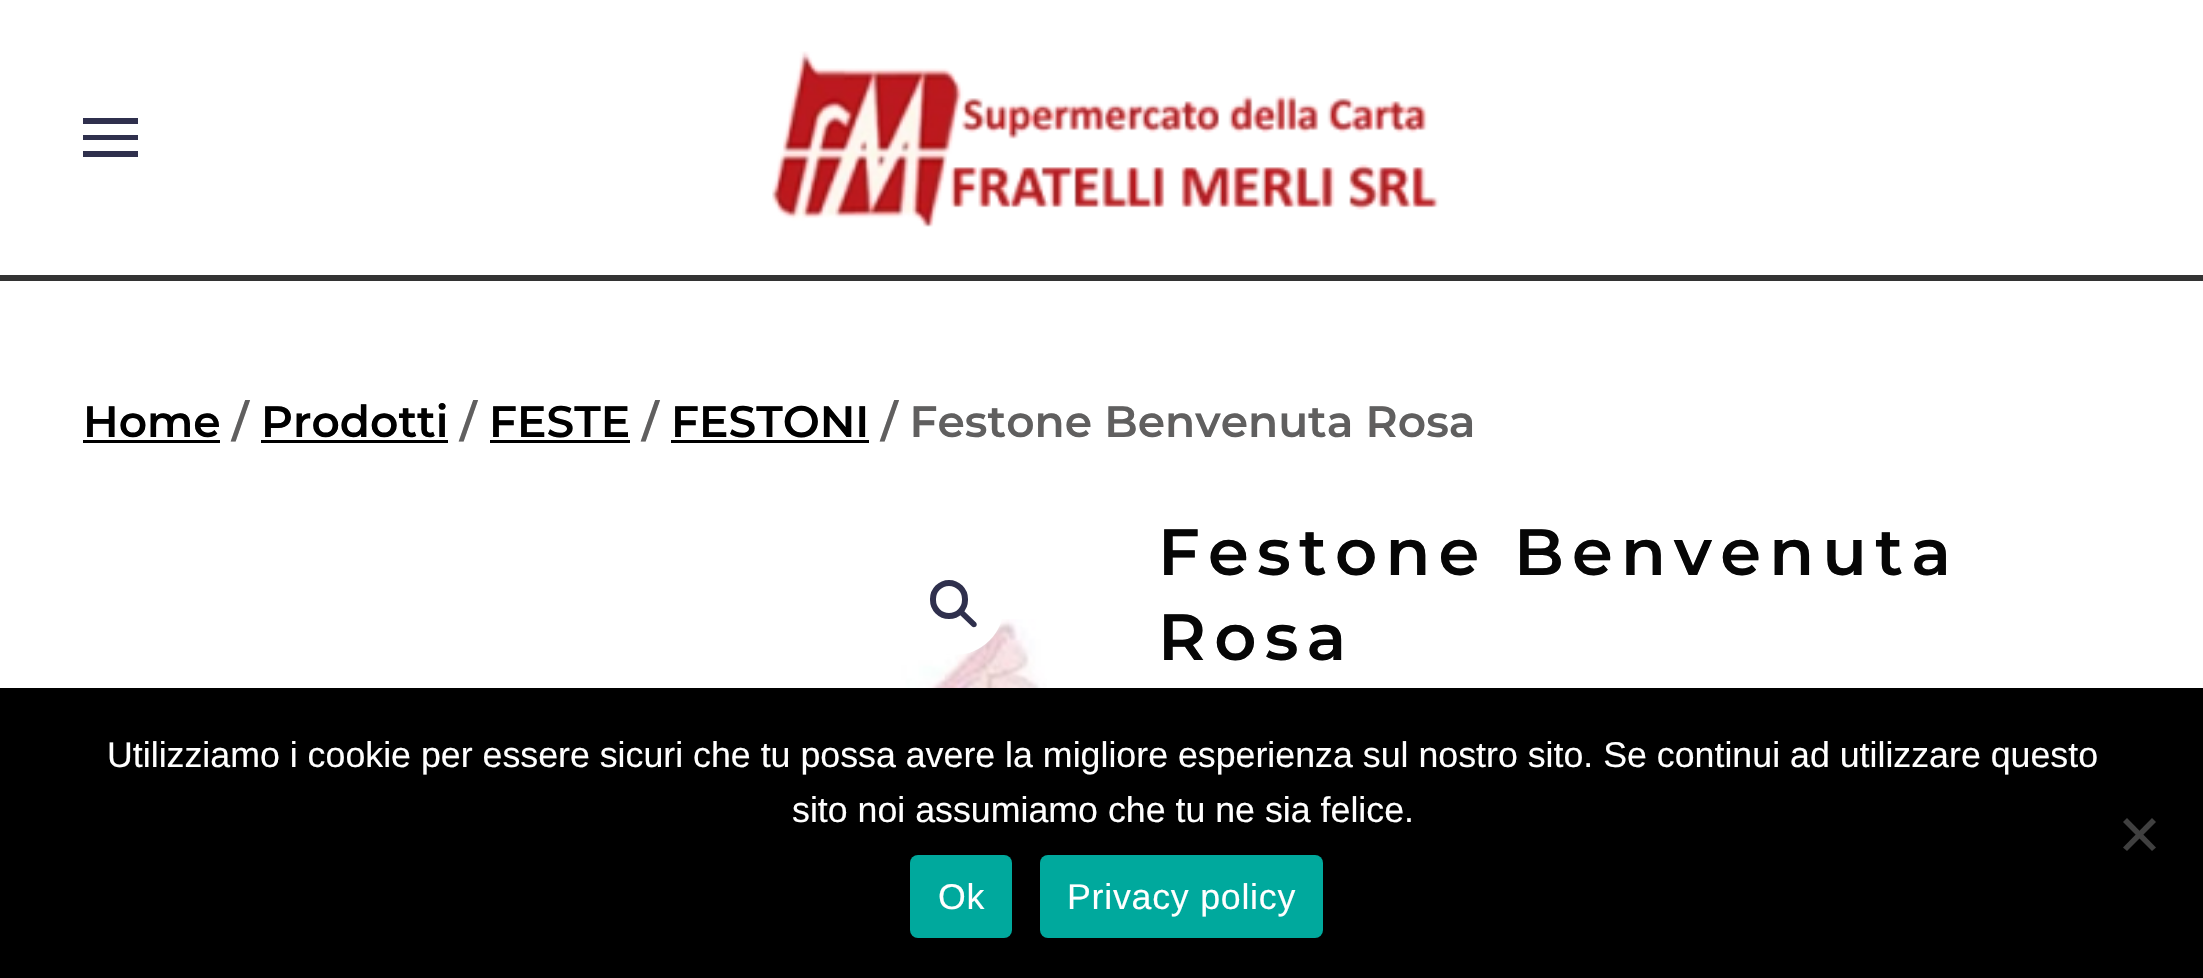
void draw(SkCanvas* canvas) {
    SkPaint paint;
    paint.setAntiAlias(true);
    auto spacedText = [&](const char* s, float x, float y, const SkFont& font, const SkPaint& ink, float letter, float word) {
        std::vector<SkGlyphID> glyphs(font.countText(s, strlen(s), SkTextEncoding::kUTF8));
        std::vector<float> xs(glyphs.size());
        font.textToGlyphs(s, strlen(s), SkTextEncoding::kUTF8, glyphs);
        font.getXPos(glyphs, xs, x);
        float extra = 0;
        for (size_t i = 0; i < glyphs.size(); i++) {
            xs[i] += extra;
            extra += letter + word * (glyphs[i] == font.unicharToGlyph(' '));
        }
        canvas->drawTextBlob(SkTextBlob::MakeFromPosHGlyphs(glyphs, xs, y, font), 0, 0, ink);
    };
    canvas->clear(0xFFFFFFFF);
    paint.setColor(0xFF333333);
    canvas->drawRect(SkRect::MakeXYWH(0, 275, 2203, 6), paint);
    paint.setColor(0xFF2F304D);
    canvas->drawRect(SkRect::MakeXYWH(83, 118, 55, 6), paint);
    canvas->drawRect(SkRect::MakeXYWH(83, 135, 55, 5), paint);
    canvas->drawRect(SkRect::MakeXYWH(83, 151, 55, 6), paint);
    canvas->drawImageRect(SkImages::DeferredFromEncodedData(SkData::MakeFromFileName("img1.png")), SkRect::MakeXYWH(772, 51, 667, 176), SkSamplingOptions());
    SkFont font1(fontMgr->matchFamilyStyle("Montserrat", SkFontStyle(100, SkFontStyle::kNormal_Width, SkFontStyle::kUpright_Slant)), 44);
    font1.setSubpixel(true);
    paint.setColor(0xFF000000);
    canvas->drawString("Home", 83, 437, font1, paint);
    canvas->drawRect(SkRect::MakeXYWH(83, 440, 137, 3), paint);
    paint.setColor(0xFF605F5F);
    canvas->drawString("/", 232, 437, font1, paint);
    paint.setColor(0xFF000000);
    canvas->drawString("Prodotti", 261, 437, font1, paint);
    canvas->drawRect(SkRect::MakeXYWH(261, 440, 187, 3), paint);
    paint.setColor(0xFF605F5F);
    canvas->drawString("/", 460, 437, font1, paint);
    paint.setColor(0xFF000000);
    canvas->drawString("FESTE", 489, 437, font1, paint);
    canvas->drawRect(SkRect::MakeXYWH(490, 440, 140, 3), paint);
    paint.setColor(0xFF605F5F);
    canvas->drawString("/", 642, 437, font1, paint);
    paint.setColor(0xFF000000);
    canvas->drawString("FESTONI", 671, 437, font1, paint);
    canvas->drawRect(SkRect::MakeXYWH(671, 440, 198, 3), paint);
    paint.setColor(0xFF605F5F);
    canvas->drawString("/ Festone Benvenuta Rosa", 881, 437, font1, paint);
    canvas->drawImageRect(SkImages::DeferredFromEncodedData(SkData::MakeFromFileName("img2.png")), SkRect::MakeXYWH(625, 619, 422, 69), SkSamplingOptions());
    paint.setColor(0xFFFFFFFF);
    canvas->drawCircle(954.5f, 605.5f, 49.5f, paint);
    paint.setStyle(SkPaint::kStroke_Style);
    paint.setStrokeWidth(6);
    paint.setColor(0xFF2F304D);
    canvas->drawRoundRect(SkRect::MakeXYWH(933, 583, 32, 33), 16, 16, paint);
    paint.setStyle(SkPaint::kFill_Style);
    canvas->drawPath(SkPathBuilder().moveTo(960, 611).cubicTo(961.5f, 610, 963, 610, 964, 611).lineTo(976, 622.5f).cubicTo(977, 623.5f, 977, 625.5f, 976, 626.5f).cubicTo(974.5f, 627.5f, 973, 627.5f, 972, 626.5f).lineTo(960, 615).cubicTo(959, 614, 959, 612, 960, 611).close().detach(), paint);
    SkFont font2(fontMgr->matchFamilyStyle("Montserrat", SkFontStyle(100, SkFontStyle::kNormal_Width, SkFontStyle::kUpright_Slant)), 65.5f);
    font2.setSubpixel(true);
    paint.setColor(0xFF060606);
    spacedText("Festone Benvenuta", 1158, 575, font2, paint, 8.25f, 0);
    spacedText("Rosa", 1158, 660, font2, paint, 8.25f, 0);
    paint.setColor(0xFF000000);
    canvas->drawRect(SkRect::MakeXYWH(0, 688, 2203, 290), paint);
    SkFont font3(fontMgr->matchFamilyStyle("Liberation Sans", SkFontStyle::Normal()), 35.75f);
    font3.setSubpixel(true);
    paint.setColor(0xFFFFFFFF);
    canvas->drawString("Utilizziamo i cookie per essere sicuri che tu possa avere la migliore esperienza sul nostro sito. Se continui ad utilizzare questo", 107, 767, font3, paint);
    canvas->drawString("sito noi assumiamo che tu ne sia felice.", 792, 822, font3, paint);
    paint.setColor(0xFF404040);
    canvas->drawPath(SkPathBuilder().moveTo(2152, 818).lineTo(2156, 822).lineTo(2127, 851).lineTo(2123, 847.5f).close().detach(), paint);
    canvas->drawPath(SkPathBuilder().moveTo(2123, 822).lineTo(2127, 818).lineTo(2156, 847.5f).lineTo(2152, 851).close().detach(), paint);
    paint.setColor(0xFF00A99D);
    canvas->drawRoundRect(SkRect::MakeXYWH(910, 855, 102, 83), 8, 8, paint);
    paint.setColor(0xFFFFFFFF);
    spacedText("Ok", 938, 909, font3, paint, 0.75f, 0);
    paint.setColor(0xFF00A99D);
    canvas->drawRoundRect(SkRect::MakeXYWH(1040, 855, 283, 83), 8, 8, paint);
    paint.setColor(0xFFFFFFFF);
    spacedText("Privacy policy", 1067, 909, font3, paint, 0.75f, 0);
}
